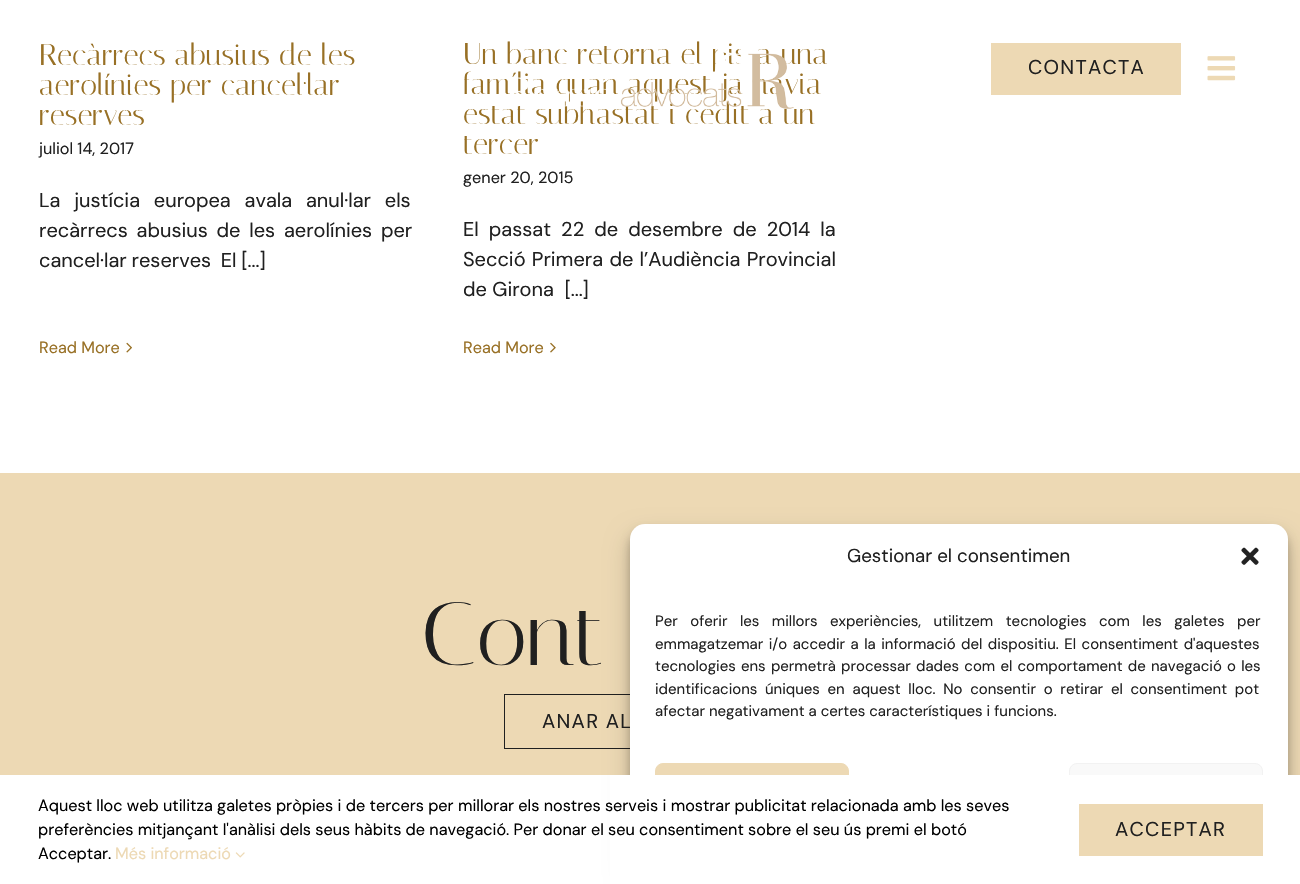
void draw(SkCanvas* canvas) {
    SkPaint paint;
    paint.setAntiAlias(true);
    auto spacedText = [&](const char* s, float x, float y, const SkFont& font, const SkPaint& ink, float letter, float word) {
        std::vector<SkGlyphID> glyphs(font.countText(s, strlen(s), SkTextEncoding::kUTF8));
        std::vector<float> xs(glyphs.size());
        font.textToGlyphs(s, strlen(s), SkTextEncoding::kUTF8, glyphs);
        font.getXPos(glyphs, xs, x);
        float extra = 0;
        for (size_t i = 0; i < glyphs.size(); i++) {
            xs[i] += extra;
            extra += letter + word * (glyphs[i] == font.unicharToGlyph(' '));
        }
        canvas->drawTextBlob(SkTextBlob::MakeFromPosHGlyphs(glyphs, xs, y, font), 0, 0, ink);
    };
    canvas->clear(0xFFFFFFFF);
    SkFont font1(fontMgr->matchFamilyStyle("Italiana", SkFontStyle::Normal()), 30);
    font1.setSubpixel(true);
    paint.setColor(0xFF987025);
    canvas->drawString("Recàrrecs abusius de les", 39, 65, font1, paint);
    canvas->drawString("aerolínies per cancel·lar", 39, 95, font1, paint);
    canvas->drawString("reserves", 39, 125, font1, paint);
    SkFont font2(fontMgr->matchFamilyStyle("DM Sans", SkFontStyle::Normal()), 16.25f);
    font2.setSubpixel(true);
    paint.setColor(0xFF202020);
    canvas->drawString("juliol 14, 2017", 39, 154, font2, paint);
    SkFont font3(fontMgr->matchFamilyStyle("DM Sans", SkFontStyle::Normal()), 20);
    font3.setSubpixel(true);
    spacedText("La justícia europea avala anul·lar els", 39, 207, font3, paint, 0, 8.5f);
    spacedText("recàrrecs abusius de les aerolínies per", 39, 237, font3, paint, 0, 3.5f);
    spacedText("cancel·lar reserves  El [...]", 39, 267, font3, paint, 0, -0.5f);
    paint.setColor(0xFF987025);
    canvas->drawString("Read More", 39, 353, font2, paint);
    canvas->drawImageRect(SkImages::DeferredFromEncodedData(SkData::MakeFromFileName("img1.png")), SkRect::MakeXYWH(126, 342, 6, 11), SkSamplingOptions());
    canvas->drawString("Un banc retorna el pis a una", 463, 64, font1, paint);
    canvas->drawString("família quan aquest ja havia", 463, 94, font1, paint);
    canvas->drawString("estat subhastat i cedit a un", 463, 124, font1, paint);
    canvas->drawString("tercer", 463, 154, font1, paint);
    paint.setColor(0xFF202020);
    canvas->drawString("gener 20, 2015", 463, 183, font2, paint);
    spacedText("El passat 22 de desembre de 2014 la", 463, 236, font3, paint, 0, 4.75f);
    spacedText("Secció Primera de l’Audiència Provincial", 463, 266, font3, paint, 0, 1);
    canvas->drawString("de Girona  [...]", 463, 296, font3, paint);
    paint.setColor(0xFF987025);
    canvas->drawString("Read More", 463, 353, font2, paint);
    canvas->drawImageRect(SkImages::DeferredFromEncodedData(SkData::MakeFromFileName("img2.png")), SkRect::MakeXYWH(550, 342, 6, 11), SkSamplingOptions());
    canvas->drawImageRect(SkImages::DeferredFromEncodedData(SkData::MakeFromFileName("img3.png")), SkRect::MakeXYWH(511, 48, 283, 61), SkSamplingOptions());
    paint.setColor(0xFFEDD9B4);
    canvas->drawRect(SkRect::MakeXYWH(991, 43, 190, 52), paint);
    paint.setColor(0xFF202020);
    spacedText("CONTACTA", 1028, 74, font3, paint, 1.25f, 0);
    canvas->drawImageRect(SkImages::DeferredFromEncodedData(SkData::MakeFromFileName("img4.png")), SkRect::MakeXYWH(1207, 56, 29, 25), SkSamplingOptions());
    paint.setColor(0xFFEDD9B4);
    canvas->drawRect(SkRect::MakeXYWH(0, 473, 1300, 302), paint);
    SkFont font4(fontMgr->matchFamilyStyle("Italiana", SkFontStyle::Normal()), 90);
    font4.setSubpixel(true);
    paint.setColor(0xFF202020);
    canvas->drawString("Cont", 421, 665, font4, paint);
    paint.setStyle(SkPaint::kStroke_Style);
    paint.setStrokeWidth(1);
    canvas->drawRect(SkRect::MakeXYWH(504.5f, 694.5f, 291, 54), paint);
    paint.setStyle(SkPaint::kFill_Style);
    spacedText("ANAR AL", 542, 728, font3, paint, 1.25f, 0);
    paint.setColor(0x3B000000);
    paint.setMaskFilter(SkMaskFilter::MakeBlur(kNormal_SkBlurStyle, 4));
    canvas->drawRoundRect(SkRect::MakeXYWH(630, 531, 658, 349), 15, 15, paint);
    paint.setMaskFilter(nullptr);
    paint.setColor(0x30000000);
    paint.setMaskFilter(SkMaskFilter::MakeBlur(kNormal_SkBlurStyle, 12.5f));
    canvas->drawRoundRect(SkRect::MakeXYWH(630, 536, 658, 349), 15, 15, paint);
    paint.setMaskFilter(nullptr);
    paint.setColor(0xFFFFFFFF);
    canvas->drawRoundRect(SkRect::MakeXYWH(630, 524, 658, 349), 15, 15, paint);
    SkFont font5(fontMgr->matchFamilyStyle("DM Sans", SkFontStyle::Normal()), 18.75f);
    font5.setSubpixel(true);
    paint.setColor(0xFF202020);
    canvas->drawString("Gestionar el consentimen", 847, 562, font5, paint);
    canvas->drawImageRect(SkImages::DeferredFromEncodedData(SkData::MakeFromFileName("img5.png")), SkRect::MakeXYWH(1241, 547, 18, 18), SkSamplingOptions());
    SkFont font6(fontMgr->matchFamilyStyle("DM Sans", SkFontStyle::Normal()), 15);
    font6.setSubpixel(true);
    spacedText("Per oferir les millors experiències, utilitzem tecnologies com les galetes per", 655, 626, font6, paint, 0, 8.5f);
    spacedText("emmagatzemar i/o accedir a la informació del dispositiu. El consentiment d'aquestes", 655, 649, font6, paint, 0, 1.5f);
    spacedText("tecnologies ens permetrà processar dades com el comportament de navegació o les", 655, 671, font6, paint, 0, 1.25f);
    spacedText("identificacions úniques en aquest lloc. No consentir o retirar el consentiment pot", 655, 694, font6, paint, 0, 3.75f);
    canvas->drawString("afectar negativament a certes característiques i funcions.", 655, 716, font6, paint);
    paint.setColor(0xFFEDD9B4);
    canvas->drawRoundRect(SkRect::MakeXYWH(655.5f, 763.5f, 193, 55), 7.5f, 7.5f, paint);
    paint.setStyle(SkPaint::kStroke_Style);
    canvas->drawRoundRect(SkRect::MakeXYWH(655.5f, 763.5f, 193, 55), 7.5f, 7.5f, paint);
    paint.setStyle(SkPaint::kFill_Style);
    paint.setColor(0xFFF9F9F9);
    canvas->drawRoundRect(SkRect::MakeXYWH(1069.5f, 763.5f, 193, 55), 7.5f, 7.5f, paint);
    paint.setStyle(SkPaint::kStroke_Style);
    paint.setColor(0xFFF2F2F2);
    canvas->drawRoundRect(SkRect::MakeXYWH(1069.5f, 763.5f, 193, 55), 7.5f, 7.5f, paint);
    paint.setStyle(SkPaint::kFill_Style);
    paint.setColor(0xFFFFFFFF);
    canvas->drawRect(SkRect::MakeXYWH(610, 775, 690, 109), paint);
    paint.setColor(0xFF000000);
    canvas->drawString("Aquest lloc web utilitza galetes pròpies i de tercers per millorar els nostres serveis i mostrar publicitat relacionada amb les seves", 38, 811, font2, paint);
    canvas->drawString("preferències mitjançant l'anàlisi dels seus hàbits de navegació. Per donar el seu consentiment sobre el seu ús premi el botó", 38, 835, font2, paint);
    canvas->drawString("Acceptar.", 38, 859, font2, paint);
    paint.setColor(0xFFEDD9B4);
    canvas->drawString("Més informació", 115, 859, font2, paint);
    canvas->drawImageRect(SkImages::DeferredFromEncodedData(SkData::MakeFromFileName("img6.png")), SkRect::MakeXYWH(235, 852, 10, 6), SkSamplingOptions());
    canvas->drawRect(SkRect::MakeXYWH(1079, 804, 184, 52), paint);
    paint.setColor(0xFF202020);
    spacedText("ACCEPTAR", 1115, 836, font3, paint, 1.25f, 0);
}
